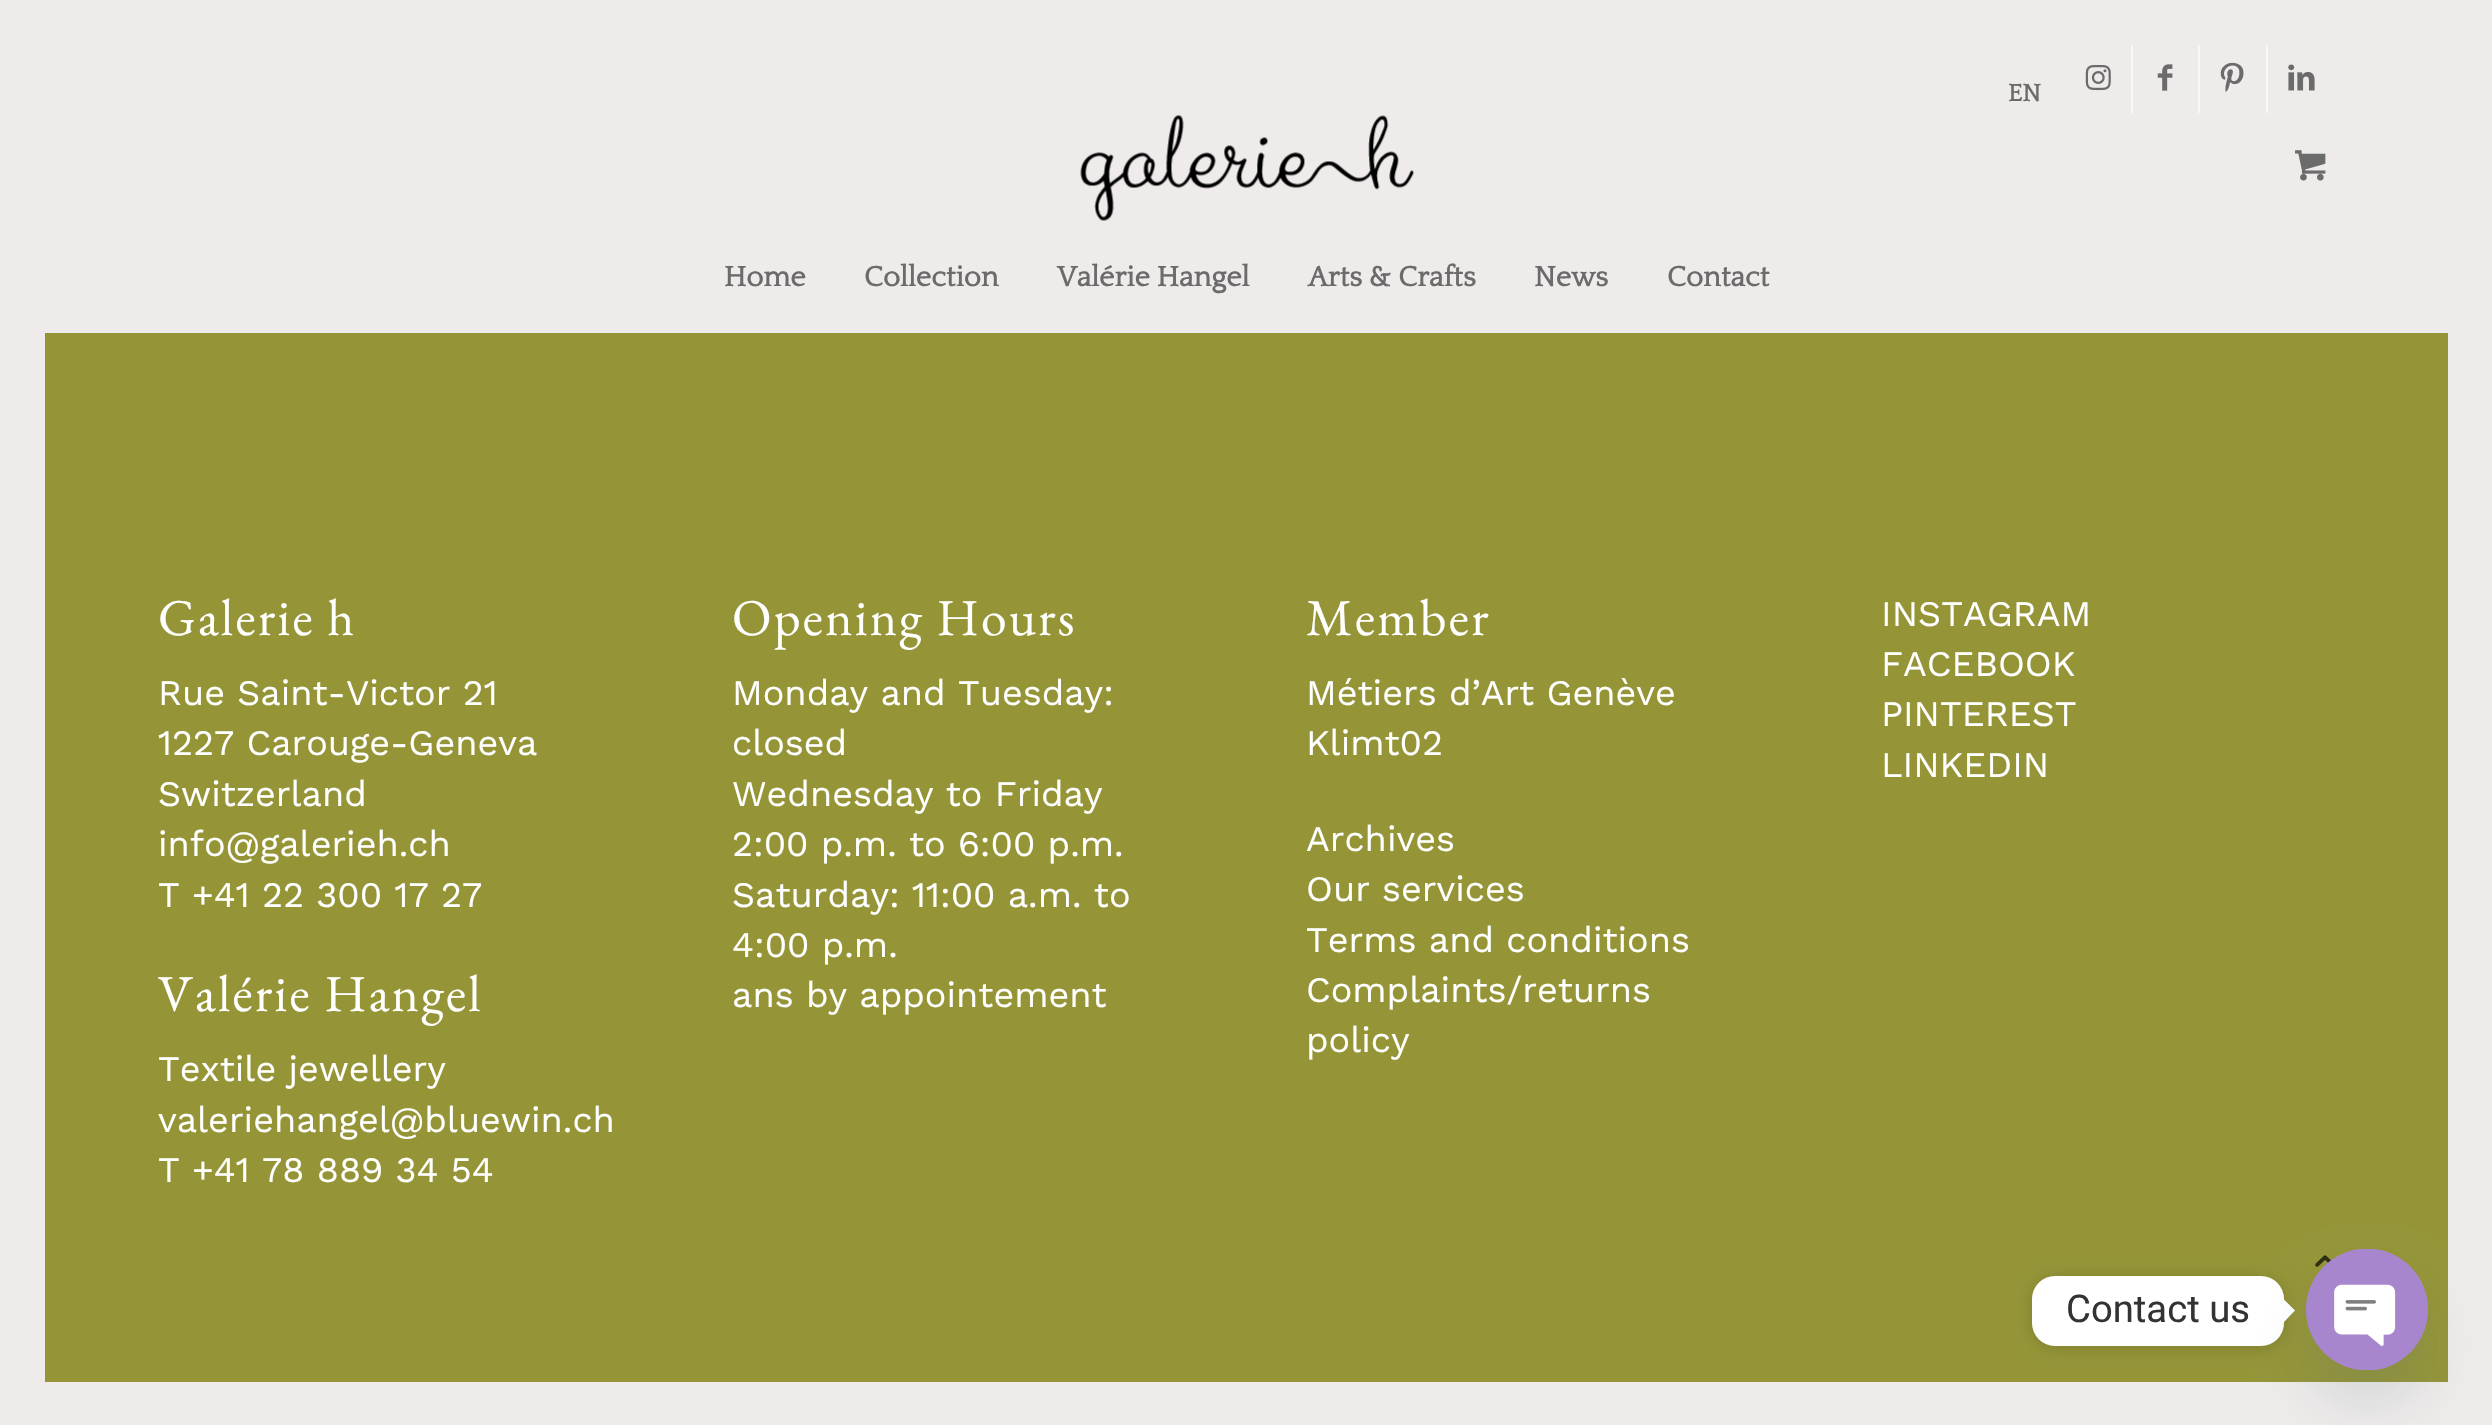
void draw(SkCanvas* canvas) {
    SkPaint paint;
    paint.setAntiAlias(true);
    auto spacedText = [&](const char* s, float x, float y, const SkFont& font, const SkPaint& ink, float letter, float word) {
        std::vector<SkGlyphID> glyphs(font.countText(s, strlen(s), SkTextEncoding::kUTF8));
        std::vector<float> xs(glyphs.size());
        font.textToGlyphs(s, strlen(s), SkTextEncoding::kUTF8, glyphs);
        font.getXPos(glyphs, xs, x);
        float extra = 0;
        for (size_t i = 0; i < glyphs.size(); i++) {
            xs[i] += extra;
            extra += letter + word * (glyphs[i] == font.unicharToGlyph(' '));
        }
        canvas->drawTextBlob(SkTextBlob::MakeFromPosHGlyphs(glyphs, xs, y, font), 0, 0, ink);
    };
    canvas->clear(0xFF959538);
    paint.setColor(0xFFEEEBEA);
    canvas->drawRect(SkRect::MakeXYWH(0, 0, 45, 1425), paint);
    canvas->drawRect(SkRect::MakeXYWH(45, 0, 2403, 333), paint);
    SkFont font1(fontMgr->matchFamilyStyle("Quattrocento", SkFontStyle::Bold()), 25);
    font1.setSubpixel(true);
    paint.setColor(0xFF6B6B6B);
    canvas->drawString("EN", 2008, 101, font1, paint);
    paint.setColor(0xFFF8F8F8);
    canvas->drawRect(SkRect::MakeXYWH(2131, 45, 2, 68), paint);
    canvas->drawImageRect(SkImages::DeferredFromEncodedData(SkData::MakeFromFileName("img1.png")), SkRect::MakeXYWH(2085, 65, 26, 26), SkSamplingOptions());
    canvas->drawRect(SkRect::MakeXYWH(2198, 45, 2, 68), paint);
    canvas->drawImageRect(SkImages::DeferredFromEncodedData(SkData::MakeFromFileName("img2.png")), SkRect::MakeXYWH(2157, 64, 16, 27), SkSamplingOptions());
    canvas->drawRect(SkRect::MakeXYWH(2266, 45, 2, 68), paint);
    canvas->drawImageRect(SkImages::DeferredFromEncodedData(SkData::MakeFromFileName("img3.png")), SkRect::MakeXYWH(2220, 62, 24, 30), SkSamplingOptions());
    canvas->drawImageRect(SkImages::DeferredFromEncodedData(SkData::MakeFromFileName("img4.png")), SkRect::MakeXYWH(2288, 64, 27, 27), SkSamplingOptions());
    canvas->drawImageRect(SkImages::DeferredFromEncodedData(SkData::MakeFromFileName("img5.png")), SkRect::MakeXYWH(1080, 115, 334, 106), SkSamplingOptions());
    canvas->drawImageRect(SkImages::DeferredFromEncodedData(SkData::MakeFromFileName("img6.png")), SkRect::MakeXYWH(2295, 150, 31, 31), SkSamplingOptions());
    SkFont font2(fontMgr->matchFamilyStyle("Quattrocento", SkFontStyle::Bold()), 29.25f);
    font2.setSubpixel(true);
    paint.setColor(0xFF6B6B6B);
    canvas->drawString("Home", 724, 286, font2, paint);
    canvas->drawString("Collection", 864, 286, font2, paint);
    canvas->drawString("Valérie Hangel", 1057, 286, font2, paint);
    canvas->drawString("Arts & Crafts", 1308, 286, font2, paint);
    canvas->drawString("News", 1534, 286, font2, paint);
    canvas->drawString("Contact", 1667, 286, font2, paint);
    SkFont font3(fontMgr->matchFamilyStyle("EB Garamond", SkFontStyle::Normal()), 51.75f);
    font3.setSubpixel(true);
    paint.setColor(0xFFFFFFFF);
    spacedText("Galerie h", 158, 635, font3, paint, 2.25f, 0);
    SkFont font4(fontMgr->matchFamilyStyle("Work Sans", SkFontStyle::Normal()), 36);
    font4.setSubpixel(true);
    canvas->drawString("Rue Saint-Victor 21", 158, 705, font4, paint);
    canvas->drawString("1227 Carouge-Geneva", 158, 755, font4, paint);
    canvas->drawString("Switzerland", 158, 806, font4, paint);
    canvas->drawString("info@galerieh.ch", 158, 856, font4, paint);
    canvas->drawString("T +41 22 300 17 27", 158, 907, font4, paint);
    spacedText("Valérie Hangel", 158, 1011, font3, paint, 2.25f, 0);
    canvas->drawString("Textile jewellery", 158, 1081, font4, paint);
    canvas->drawString("valeriehangel@bluewin.ch", 158, 1132, font4, paint);
    canvas->drawString("T +41 78 889 34 54", 158, 1182, font4, paint);
    spacedText("Opening Hours", 732, 635, font3, paint, 2.25f, 0);
    canvas->drawString("Monday and Tuesday:", 732, 705, font4, paint);
    canvas->drawString("closed", 732, 755, font4, paint);
    canvas->drawString("Wednesday to Friday", 732, 806, font4, paint);
    canvas->drawString("2:00 p.m. to 6:00 p.m.", 732, 856, font4, paint);
    canvas->drawString("Saturday: 11:00 a.m. to", 732, 907, font4, paint);
    canvas->drawString("4:00 p.m.", 732, 957, font4, paint);
    canvas->drawString("ans by appointement", 732, 1007, font4, paint);
    spacedText("Member", 1306, 635, font3, paint, 2.25f, 0);
    canvas->drawString("Métiers d’Art Genève", 1306, 705, font4, paint);
    canvas->drawString("Klimt02", 1306, 755, font4, paint);
    canvas->drawString("Archives", 1306, 851, font4, paint);
    canvas->drawString("Our services", 1306, 901, font4, paint);
    canvas->drawString("Terms and conditions", 1306, 952, font4, paint);
    canvas->drawString("Complaints/returns", 1306, 1002, font4, paint);
    canvas->drawString("policy", 1306, 1052, font4, paint);
    canvas->drawString("INSTAGRAM", 1881, 626, font4, paint);
    canvas->drawString("FACEBOOK", 1881, 676, font4, paint);
    canvas->drawString("PINTEREST", 1881, 726, font4, paint);
    canvas->drawString("LINKEDIN", 1881, 777, font4, paint);
    paint.setColor(0xFFEEEBEA);
    canvas->drawRect(SkRect::MakeXYWH(2448, 0, 44, 1425), paint);
    canvas->drawImageRect(SkImages::DeferredFromEncodedData(SkData::MakeFromFileName("img7.png")), SkRect::MakeXYWH(2315, 1255, 17, 12), SkSamplingOptions());
    canvas->save();
    canvas->clipPath(SkPathBuilder(SkPathFillType::kEvenOdd).moveTo(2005, 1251).lineTo(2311, 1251).lineTo(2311, 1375).lineTo(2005, 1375).close().moveTo(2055, 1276).lineTo(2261, 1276).cubicTo(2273.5f, 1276, 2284, 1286.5f, 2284, 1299).lineTo(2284, 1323).cubicTo(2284, 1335.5f, 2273.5f, 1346, 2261, 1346).lineTo(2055, 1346).cubicTo(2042.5f, 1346, 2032, 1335.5f, 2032, 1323).lineTo(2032, 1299).cubicTo(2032, 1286.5f, 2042.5f, 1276, 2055, 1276).close().detach(), true);
    paint.setColor(0x26000000);
    paint.setMaskFilter(SkMaskFilter::MakeBlur(kNormal_SkBlurStyle, 8.5f));
    canvas->drawRoundRect(SkRect::MakeXYWH(2032, 1278, 252, 70), 23, 23, paint);
    paint.setMaskFilter(nullptr);
    canvas->restore();
    paint.setColor(0xFFFFFFFF);
    canvas->drawRoundRect(SkRect::MakeXYWH(2032, 1276, 252, 70), 23, 23, paint);
    SkFont font5(fontMgr->matchFamilyStyle("Roboto", SkFontStyle::Normal()), 38.25f);
    font5.setSubpixel(true);
    paint.setColor(0xFF333333);
    canvas->drawString("Contact us", 2066, 1322, font5, paint);
    paint.setColor(0xFFFFFFFF);
    canvas->drawPath(SkPathBuilder().moveTo(2284, 1322).lineTo(2284, 1299.5f).lineTo(2295, 1310.5f).close().detach(), paint);
    paint.setColor(0xFFEEEBEA);
    canvas->drawRect(SkRect::MakeXYWH(45, 1382, 2403, 43), paint);
    paint.setColor(0x2949687E);
    paint.setMaskFilter(SkMaskFilter::MakeBlur(kNormal_SkBlurStyle, 27));
    canvas->drawRoundRect(SkRect::MakeXYWH(2306, 1285, 122, 121), 60.5f, 60.5f, paint);
    paint.setMaskFilter(nullptr);
    canvas->drawImageRect(SkImages::DeferredFromEncodedData(SkData::MakeFromFileName("img8.png")), SkRect::MakeXYWH(2306, 1249, 122, 121), SkSamplingOptions());
}
